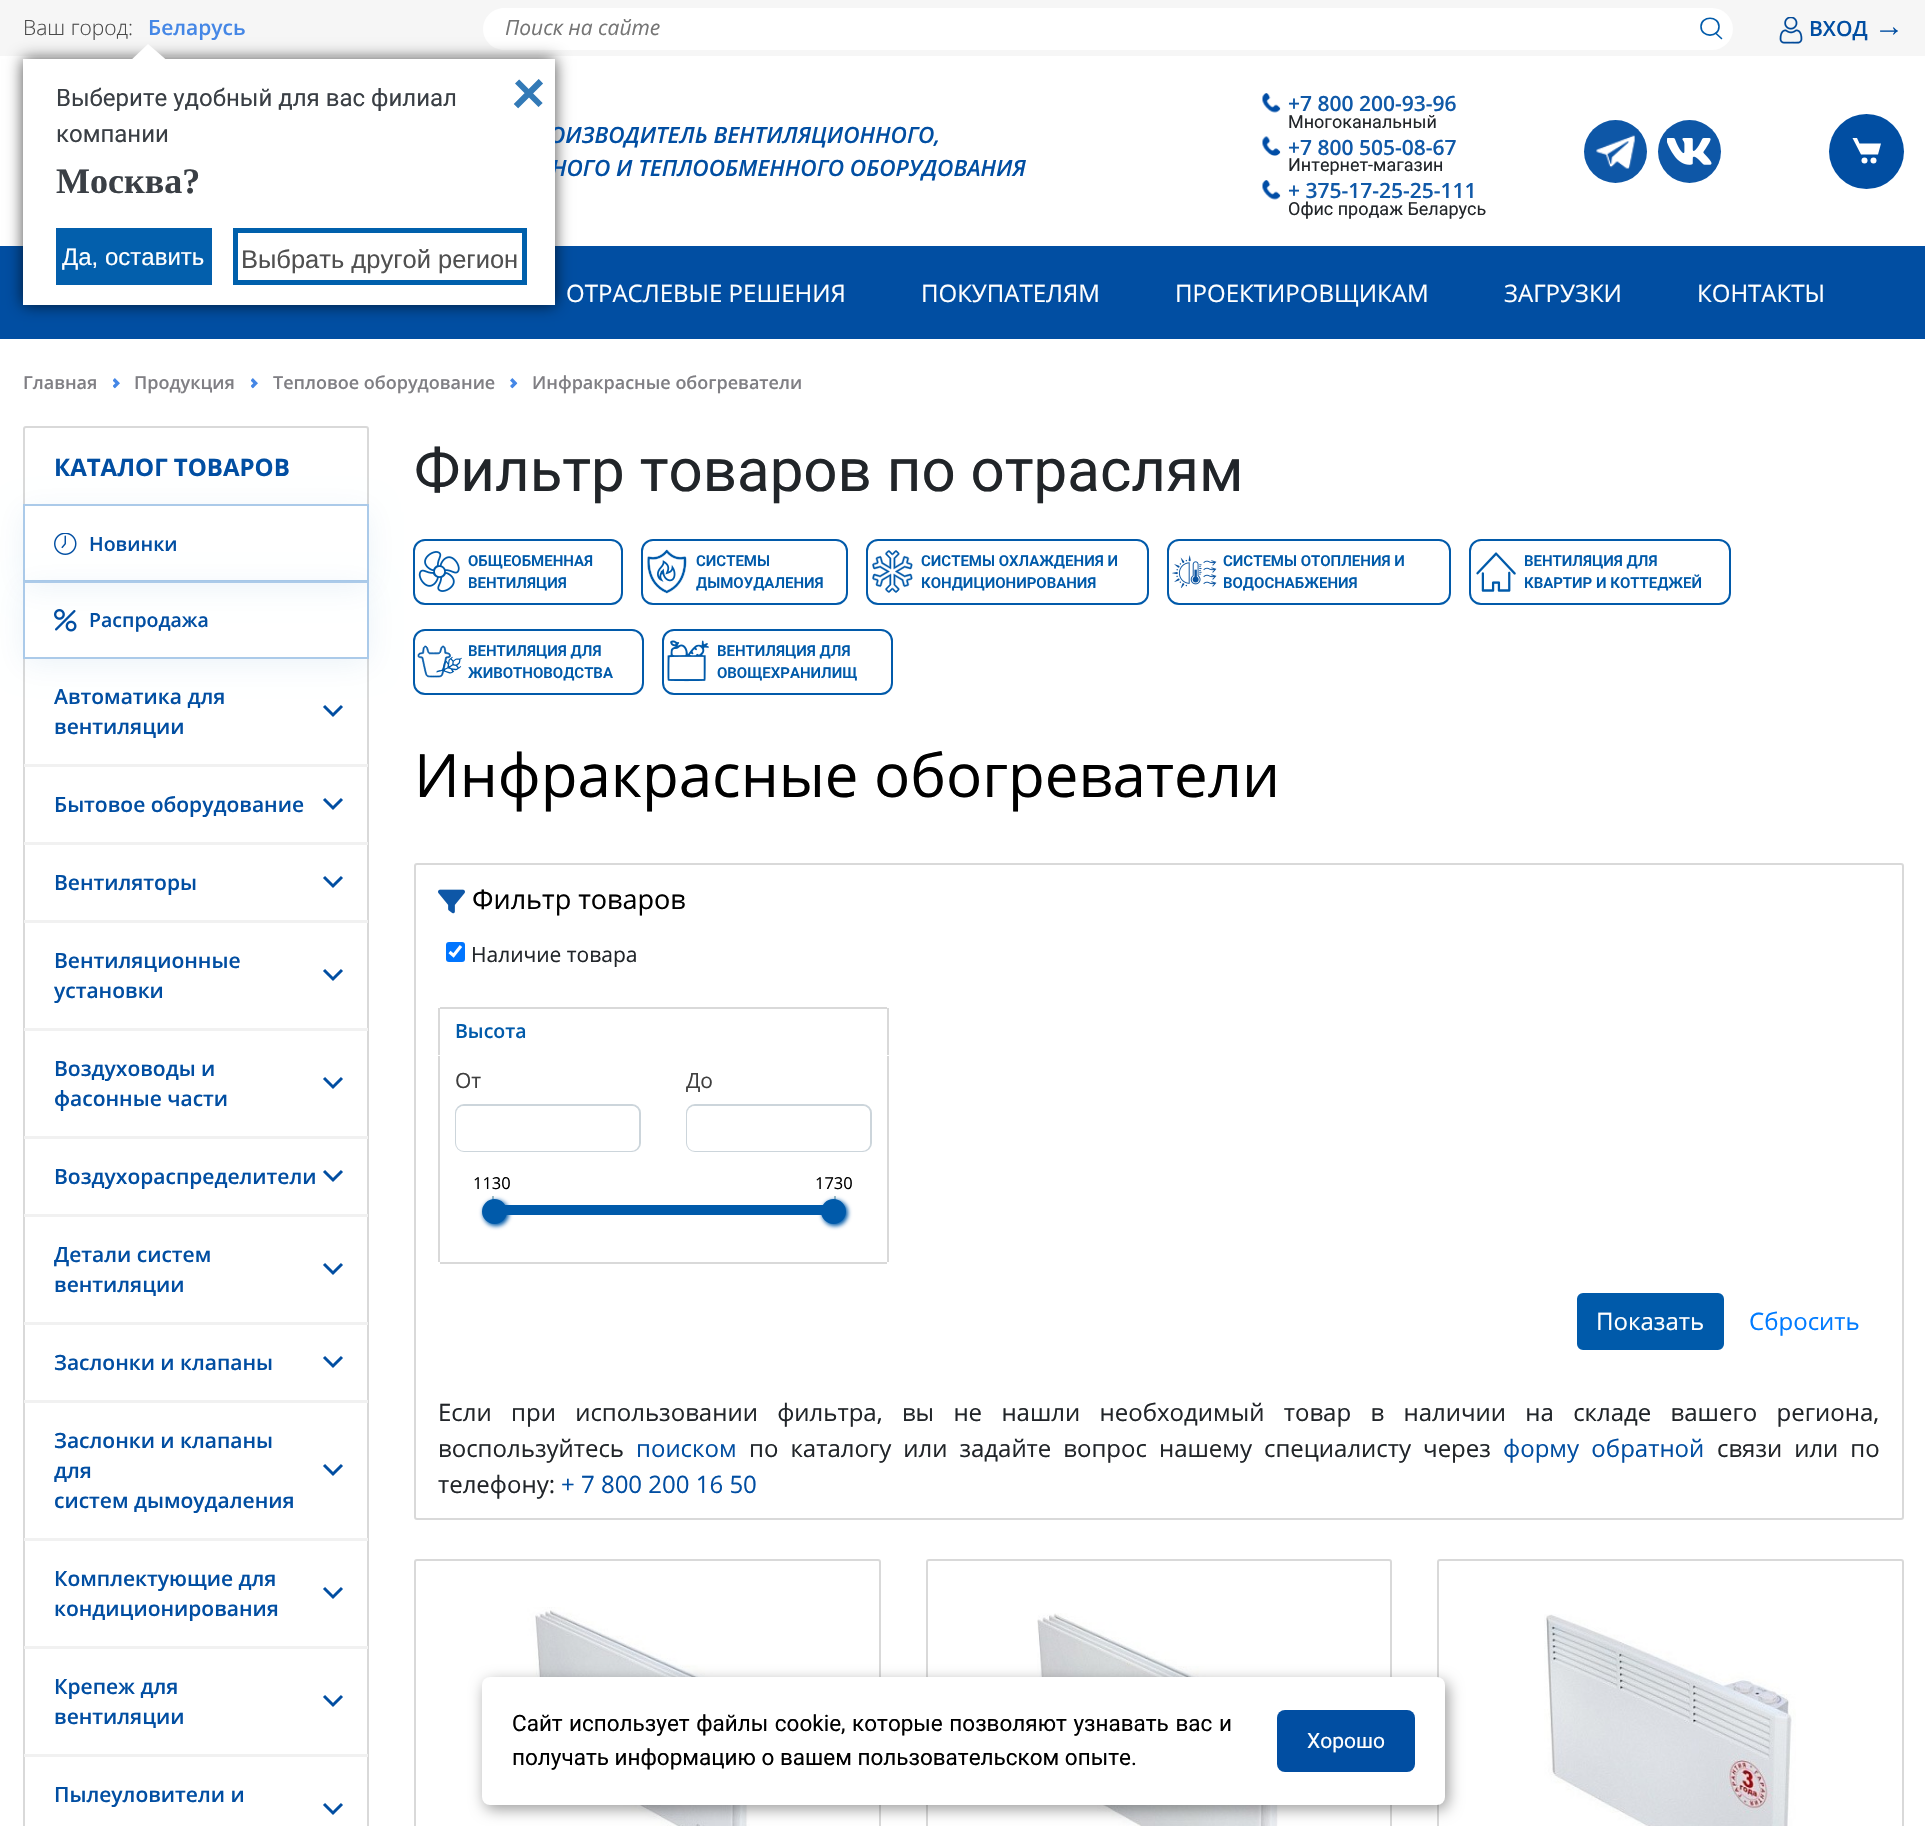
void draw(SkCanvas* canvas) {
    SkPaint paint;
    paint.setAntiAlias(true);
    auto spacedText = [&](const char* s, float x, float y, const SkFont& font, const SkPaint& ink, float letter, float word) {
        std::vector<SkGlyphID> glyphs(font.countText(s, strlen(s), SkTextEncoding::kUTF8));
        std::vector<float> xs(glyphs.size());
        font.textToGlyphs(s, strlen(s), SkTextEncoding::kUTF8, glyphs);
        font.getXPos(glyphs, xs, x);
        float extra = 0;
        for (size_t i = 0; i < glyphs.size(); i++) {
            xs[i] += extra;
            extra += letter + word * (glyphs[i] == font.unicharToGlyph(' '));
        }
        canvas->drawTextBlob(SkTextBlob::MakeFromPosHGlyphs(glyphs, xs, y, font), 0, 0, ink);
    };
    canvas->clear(0xFFFFFFFF);
    paint.setColor(0xFFF6F6F6);
    canvas->drawRect(SkRect::MakeXYWH(0, 0, 1925, 56), paint);
    SkFont font1(fontMgr->matchFamilyStyle("Open Sans", SkFontStyle(300, SkFontStyle::kNormal_Width, SkFontStyle::kUpright_Slant)), 21);
    font1.setSubpixel(true);
    paint.setColor(0xFF4A4A4A);
    canvas->drawString("Ваш город:", 23, 35, font1, paint);
    SkFont font2(fontMgr->matchFamilyStyle("Open Sans", SkFontStyle(600, SkFontStyle::kNormal_Width, SkFontStyle::kUpright_Slant)), 21);
    font2.setSubpixel(true);
    paint.setColor(0xFF4587E6);
    canvas->drawString("Беларусь", 148, 35, font2, paint);
    paint.setColor(0xFFFFFFFF);
    canvas->drawPath(SkPathBuilder().moveTo(504, 8).lineTo(1713, 8).lineTo(1713, 50).lineTo(504, 50).cubicTo(492.5f, 50, 483, 40.5f, 483, 29).cubicTo(483, 17.5f, 492.5f, 8, 504, 8).close().detach(), paint);
    paint.setColor(0xFF014EA2);
    canvas->drawRect(SkRect::MakeXYWH(0, 246, 1925, 93), paint);
    paint.setColor(0xB3000000);
    paint.setMaskFilter(SkMaskFilter::MakeBlur(kNormal_SkBlurStyle, 7.5f));
    canvas->drawRect(SkRect::MakeXYWH(23, 59, 532, 246), paint);
    paint.setMaskFilter(nullptr);
    SkFont font3(fontMgr->matchFamilyStyle("Open Sans", SkFontStyle(600, SkFontStyle::kNormal_Width, SkFontStyle::kItalic_Slant)), 22.5f);
    font3.setSubpixel(true);
    paint.setColor(0xFF014EA2);
    canvas->drawString("ОИЗВОДИТЕЛЬ ВЕНТИЛЯЦИОННОГО,", 549, 143, font3, paint);
    canvas->drawString("НОГО И ТЕПЛООБМЕННОГО ОБОРУДОВАНИЯ", 551, 176, font3, paint);
    paint.setColor(0xFFFFFFFF);
    canvas->drawRect(SkRect::MakeXYWH(23, 59, 532, 246), paint);
    canvas->drawPath(SkPathBuilder().moveTo(170, 63).lineTo(128, 63).lineTo(148, 44).close().detach(), paint);
    SkFont font4(fontMgr->matchFamilyStyle("Roboto", SkFontStyle::Normal()), 24);
    font4.setSubpixel(true);
    paint.setColor(0xFF3A3F45);
    canvas->drawString("Выберите удобный для вас филиал", 56, 106, font4, paint);
    canvas->drawString("компании", 56, 142, font4, paint);
    SkFont font5(fontMgr->matchFamilyStyle("Roboto", SkFontStyle::Normal()), 68);
    font5.setSubpixel(true);
    paint.setColor(0xFF337AB7);
    canvas->save();
    canvas->rotate(45, 499, 96);
    canvas->drawString("+", 499, 96, font5, paint);
    canvas->restore();
    SkFont font6(fontMgr->matchFamilyStyle("Liberation Serif", SkFontStyle::Bold()), 36);
    font6.setSubpixel(true);
    paint.setColor(0xFF3A3F45);
    canvas->drawString("Москва?", 56, 193, font6, paint);
    paint.setColor(0xFF035FAC);
    canvas->drawRect(SkRect::MakeXYWH(56, 228, 156, 57), paint);
    SkFont font7(fontMgr->matchFamilyStyle("Liberation Sans", SkFontStyle::Normal()), 24);
    font7.setSubpixel(true);
    paint.setColor(0xFFFFFFFF);
    canvas->drawString("Да, оставить", 62, 265, font7, paint);
    paint.setStyle(SkPaint::kStroke_Style);
    paint.setStrokeWidth(5);
    paint.setColor(0xFF0060AC);
    canvas->drawRect(SkRect::MakeXYWH(235.5f, 230.5f, 289, 52), paint);
    SkFont font8(fontMgr->matchFamilyStyle("Liberation Sans", SkFontStyle::Normal()), 25.5f);
    font8.setSubpixel(true);
    paint.setStyle(SkPaint::kFill_Style);
    paint.setColor(0xFF505050);
    canvas->drawString("Выбрать другой регион", 241, 268, font8, paint);
    SkFont font9(fontMgr->matchFamilyStyle("Open Sans", SkFontStyle::Italic()), 21);
    font9.setSubpixel(true);
    paint.setColor(0xFF757575);
    canvas->drawString("Поиск на сайте", 505, 35, font9, paint);
    paint.setColor(0xFFFFFFFF);
    canvas->drawCircle(1712, 29, 21, paint);
    paint.setStyle(SkPaint::kStroke_Style);
    paint.setStrokeWidth(1.6f);
    paint.setStrokeCap(SkPaint::kRound_Cap);
    paint.setColor(0xFF005AAA);
    canvas->drawPath(SkPathBuilder().moveTo(1715.5f, 33).lineTo(1721.5f, 38.5f).moveTo(1719, 26.5f).cubicTo(1719, 38, 1701, 38, 1701, 26.5f).cubicTo(1701, 15.5f, 1719, 15.5f, 1719, 26.5f).close().detach(), paint);
    canvas->drawImageRect(SkImages::DeferredFromEncodedData(SkData::MakeFromFileName("img1.png")), SkRect::MakeXYWH(1779, 17, 24, 27), SkSamplingOptions());
    paint.setStyle(SkPaint::kFill_Style);
    paint.setColor(0xFF014EA2);
    canvas->drawString("ВХОД", 1809, 36, font2, paint);
    SkFont font10(fontMgr->matchFamilyStyle("Liberation Sans", SkFontStyle::Bold()), 30);
    font10.setSubpixel(true);
    canvas->drawString("→", 1874, 36, font10, paint);
    canvas->drawImageRect(SkImages::DeferredFromEncodedData(SkData::MakeFromFileName("img2.png")), SkRect::MakeXYWH(1262, 93, 19, 20), SkSamplingOptions());
    paint.setColor(0xFF1059A8);
    canvas->drawString("+7 800 200-93-96", 1288, 111, font2, paint);
    SkFont font11(fontMgr->matchFamilyStyle("Roboto", SkFontStyle::Normal()), 18);
    font11.setSubpixel(true);
    paint.setColor(0xFF212529);
    canvas->drawString("Многоканальный", 1288, 128, font11, paint);
    canvas->drawImageRect(SkImages::DeferredFromEncodedData(SkData::MakeFromFileName("img3.png")), SkRect::MakeXYWH(1262, 136, 19, 20), SkSamplingOptions());
    paint.setColor(0xFF1059A8);
    canvas->drawString("+7 800 505-08-67", 1288, 155, font2, paint);
    paint.setColor(0xFF212529);
    canvas->drawString("Интернет-магазин", 1288, 171, font11, paint);
    canvas->drawImageRect(SkImages::DeferredFromEncodedData(SkData::MakeFromFileName("img2.png")), SkRect::MakeXYWH(1262, 180, 19, 20), SkSamplingOptions());
    paint.setColor(0xFF1059A8);
    canvas->drawString("+ 375-17-25-25-111", 1288, 198, font2, paint);
    paint.setColor(0xFF212529);
    canvas->drawString("Офис продаж Беларусь", 1288, 215, font11, paint);
    paint.setColor(0xFF0E57A7);
    canvas->drawCircle(1615.5f, 151.5f, 31.5f, paint);
    canvas->drawImageRect(SkImages::DeferredFromEncodedData(SkData::MakeFromFileName("img4.png")), SkRect::MakeXYWH(1596, 135, 39, 34), SkSamplingOptions());
    canvas->drawCircle(1689.5f, 151.5f, 31.5f, paint);
    canvas->drawImageRect(SkImages::DeferredFromEncodedData(SkData::MakeFromFileName("img5.png")), SkRect::MakeXYWH(1667, 138, 45, 27), SkSamplingOptions());
    paint.setColor(0xFF014EA2);
    canvas->drawCircle(1866.5f, 151.5f, 37.5f, paint);
    paint.setColor(0xFFFFFFFF);
    canvas->drawPath(SkPathBuilder().moveTo(1859.5f, 143.5f).lineTo(1881, 143.5f).lineTo(1878, 154.5f).lineTo(1861, 154.5f).lineTo(1852.5f, 138).lineTo(1857, 138).close().detach(), paint);
    canvas->drawCircle(1864.5f, 160.5f, 3, paint);
    canvas->drawCircle(1873.5f, 160.5f, 3, paint);
    SkFont font12(fontMgr->matchFamilyStyle("Open Sans", SkFontStyle::Normal()), 24);
    font12.setSubpixel(true);
    canvas->drawString("ОТРАСЛЕВЫЕ РЕШЕНИЯ", 566, 302, font12, paint);
    canvas->drawString("ПОКУПАТЕЛЯМ", 921, 302, font12, paint);
    canvas->drawString("ПРОЕКТИРОВЩИКАМ", 1175, 302, font12, paint);
    canvas->drawString("ЗАГРУЗКИ", 1504, 302, font12, paint);
    canvas->drawString("КОНТАКТЫ", 1697, 302, font12, paint);
    SkFont font13(fontMgr->matchFamilyStyle("Open Sans", SkFontStyle(600, SkFontStyle::kNormal_Width, SkFontStyle::kUpright_Slant)), 18);
    font13.setSubpixel(true);
    paint.setColor(0xFF807F84);
    canvas->drawString("Главная", 23, 389, font13, paint);
    canvas->drawImageRect(SkImages::DeferredFromEncodedData(SkData::MakeFromFileName("img6.png")), SkRect::MakeXYWH(113, 378, 7, 11), SkSamplingOptions());
    canvas->drawString("Продукция", 134, 389, font13, paint);
    canvas->drawImageRect(SkImages::DeferredFromEncodedData(SkData::MakeFromFileName("img7.png")), SkRect::MakeXYWH(251, 378, 7, 11), SkSamplingOptions());
    canvas->drawString("Тепловое оборудование", 273, 389, font13, paint);
    canvas->drawImageRect(SkImages::DeferredFromEncodedData(SkData::MakeFromFileName("img8.png")), SkRect::MakeXYWH(510, 378, 8, 11), SkSamplingOptions());
    canvas->drawString("Инфракрасные обогреватели", 532, 389, font13, paint);
    paint.setStyle(SkPaint::kStroke_Style);
    paint.setStrokeWidth(2);
    paint.setStrokeCap(SkPaint::kButt_Cap);
    paint.setColor(0xFFD9D9D9);
    canvas->drawRoundRect(SkRect::MakeXYWH(24, 427, 344, 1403), 2, 2, paint);
    SkFont font14(fontMgr->matchFamilyStyle("Open Sans", SkFontStyle::Bold()), 24);
    font14.setSubpixel(true);
    paint.setStyle(SkPaint::kFill_Style);
    paint.setColor(0xFF014EA2);
    canvas->drawString("КАТАЛОГ ТОВАРОВ", 54, 476, font14, paint);
    canvas->save();
    canvas->clipPath(SkPathBuilder(SkPathFillType::kEvenOdd).moveTo(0, 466).lineTo(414, 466).lineTo(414, 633).lineTo(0, 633).close().moveTo(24, 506).lineTo(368, 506).lineTo(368, 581).lineTo(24, 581).close().detach(), true);
    paint.setColor(0x14005AAA);
    paint.setMaskFilter(SkMaskFilter::MakeBlur(kNormal_SkBlurStyle, 15));
    canvas->drawRect(SkRect::MakeXYWH(24, 512, 344, 75), paint);
    paint.setMaskFilter(nullptr);
    canvas->restore();
    paint.setStyle(SkPaint::kStroke_Style);
    paint.setColor(0xFFABCAE9);
    canvas->drawRect(SkRect::MakeXYWH(24, 505, 344, 76), paint);
    canvas->drawImageRect(SkImages::DeferredFromEncodedData(SkData::MakeFromFileName("img9.png")), SkRect::MakeXYWH(54, 533, 23, 22), SkSamplingOptions());
    SkFont font15(fontMgr->matchFamilyStyle("Open Sans", SkFontStyle(600, SkFontStyle::kNormal_Width, SkFontStyle::kUpright_Slant)), 19.5f);
    font15.setSubpixel(true);
    paint.setStyle(SkPaint::kFill_Style);
    paint.setColor(0xFF014EA2);
    canvas->drawString("Новинки", 89, 551, font15, paint);
    canvas->save();
    canvas->clipPath(SkPathBuilder(SkPathFillType::kEvenOdd).moveTo(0, 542).lineTo(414, 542).lineTo(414, 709).lineTo(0, 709).close().moveTo(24, 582).lineTo(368, 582).lineTo(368, 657).lineTo(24, 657).close().detach(), true);
    paint.setColor(0x14005AAA);
    paint.setMaskFilter(SkMaskFilter::MakeBlur(kNormal_SkBlurStyle, 15));
    canvas->drawRect(SkRect::MakeXYWH(24, 588, 344, 75), paint);
    paint.setMaskFilter(nullptr);
    canvas->restore();
    paint.setStyle(SkPaint::kStroke_Style);
    paint.setColor(0xFFABCAE9);
    canvas->drawRect(SkRect::MakeXYWH(24, 582, 344, 76), paint);
    canvas->drawImageRect(SkImages::DeferredFromEncodedData(SkData::MakeFromFileName("img10.png")), SkRect::MakeXYWH(54, 609, 23, 23), SkSamplingOptions());
    paint.setStyle(SkPaint::kFill_Style);
    paint.setColor(0xFF014EA2);
    canvas->drawString("Распродажа", 89, 627, font15, paint);
    paint.setColor(0xFFF1F1F1);
    canvas->drawRect(SkRect::MakeXYWH(24, 764, 344, 3), paint);
    paint.setColor(0xFF014EA2);
    canvas->drawString("Автоматика для", 54, 704, font2, paint);
    paint.setStyle(SkPaint::kStroke_Style);
    paint.setStrokeWidth(3);
    canvas->drawPath(SkPathBuilder().moveTo(324, 706).lineTo(333, 715).lineTo(342, 706).detach(), paint);
    paint.setStyle(SkPaint::kFill_Style);
    canvas->drawString("вентиляции", 54, 734, font2, paint);
    paint.setColor(0xFFF1F1F1);
    canvas->drawRect(SkRect::MakeXYWH(24, 842, 344, 3), paint);
    paint.setColor(0xFF014EA2);
    canvas->drawString("Бытовое оборудование", 54, 812, font2, paint);
    paint.setStyle(SkPaint::kStroke_Style);
    canvas->drawPath(SkPathBuilder().moveTo(324, 799).lineTo(333, 808).lineTo(342, 799).detach(), paint);
    paint.setStyle(SkPaint::kFill_Style);
    paint.setColor(0xFFF1F1F1);
    canvas->drawRect(SkRect::MakeXYWH(24, 920, 344, 3), paint);
    paint.setColor(0xFF014EA2);
    canvas->drawString("Вентиляторы", 54, 890, font2, paint);
    paint.setStyle(SkPaint::kStroke_Style);
    canvas->drawPath(SkPathBuilder().moveTo(324, 877).lineTo(333, 886).lineTo(342, 877).detach(), paint);
    paint.setStyle(SkPaint::kFill_Style);
    paint.setColor(0xFFF1F1F1);
    canvas->drawRect(SkRect::MakeXYWH(24, 1028, 344, 3), paint);
    paint.setColor(0xFF014EA2);
    canvas->drawString("Вентиляционные", 54, 968, font2, paint);
    paint.setStyle(SkPaint::kStroke_Style);
    canvas->drawPath(SkPathBuilder().moveTo(324, 970).lineTo(333, 979).lineTo(342, 970).detach(), paint);
    paint.setStyle(SkPaint::kFill_Style);
    canvas->drawString("установки", 54, 998, font2, paint);
    paint.setColor(0xFFF1F1F1);
    canvas->drawRect(SkRect::MakeXYWH(24, 1136, 344, 3), paint);
    paint.setColor(0xFF014EA2);
    canvas->drawString("Воздуховоды и", 54, 1076, font2, paint);
    paint.setStyle(SkPaint::kStroke_Style);
    canvas->drawPath(SkPathBuilder().moveTo(324, 1078).lineTo(333, 1087).lineTo(342, 1078).detach(), paint);
    paint.setStyle(SkPaint::kFill_Style);
    canvas->drawString("фасонные части", 54, 1106, font2, paint);
    paint.setColor(0xFFF1F1F1);
    canvas->drawRect(SkRect::MakeXYWH(24, 1214, 344, 3), paint);
    paint.setColor(0xFF014EA2);
    canvas->drawString("Воздухораспределители", 54, 1184, font2, paint);
    paint.setStyle(SkPaint::kStroke_Style);
    canvas->drawPath(SkPathBuilder().moveTo(324, 1171).lineTo(333, 1180).lineTo(342, 1171).detach(), paint);
    paint.setStyle(SkPaint::kFill_Style);
    paint.setColor(0xFFF1F1F1);
    canvas->drawRect(SkRect::MakeXYWH(24, 1322, 344, 3), paint);
    paint.setColor(0xFF014EA2);
    canvas->drawString("Детали систем", 54, 1262, font2, paint);
    paint.setStyle(SkPaint::kStroke_Style);
    canvas->drawPath(SkPathBuilder().moveTo(324, 1264).lineTo(333, 1273).lineTo(342, 1264).detach(), paint);
    paint.setStyle(SkPaint::kFill_Style);
    canvas->drawString("вентиляции", 54, 1292, font2, paint);
    paint.setColor(0xFFF1F1F1);
    canvas->drawRect(SkRect::MakeXYWH(24, 1400, 344, 3), paint);
    paint.setColor(0xFF014EA2);
    canvas->drawString("Заслонки и клапаны", 54, 1370, font2, paint);
    paint.setStyle(SkPaint::kStroke_Style);
    canvas->drawPath(SkPathBuilder().moveTo(324, 1357).lineTo(333, 1366).lineTo(342, 1357).detach(), paint);
    paint.setStyle(SkPaint::kFill_Style);
    paint.setColor(0xFFF1F1F1);
    canvas->drawRect(SkRect::MakeXYWH(24, 1538, 344, 3), paint);
    paint.setColor(0xFF014EA2);
    canvas->drawString("Заслонки и клапаны", 54, 1448, font2, paint);
    canvas->drawString("для", 54, 1478, font2, paint);
    paint.setStyle(SkPaint::kStroke_Style);
    canvas->drawPath(SkPathBuilder().moveTo(324, 1465).lineTo(333, 1474).lineTo(342, 1465).detach(), paint);
    paint.setStyle(SkPaint::kFill_Style);
    canvas->drawString("систем дымоудаления", 54, 1508, font2, paint);
    paint.setColor(0xFFF1F1F1);
    canvas->drawRect(SkRect::MakeXYWH(24, 1646, 344, 3), paint);
    paint.setColor(0xFF014EA2);
    canvas->drawString("Комплектующие для", 54, 1586, font2, paint);
    paint.setStyle(SkPaint::kStroke_Style);
    canvas->drawPath(SkPathBuilder().moveTo(324, 1588).lineTo(333, 1597).lineTo(342, 1588).detach(), paint);
    paint.setStyle(SkPaint::kFill_Style);
    canvas->drawString("кондиционирования", 54, 1616, font2, paint);
    paint.setColor(0xFFF1F1F1);
    canvas->drawRect(SkRect::MakeXYWH(24, 1754, 344, 3), paint);
    paint.setColor(0xFF014EA2);
    canvas->drawString("Крепеж для", 54, 1694, font2, paint);
    paint.setStyle(SkPaint::kStroke_Style);
    canvas->drawPath(SkPathBuilder().moveTo(324, 1696).lineTo(333, 1705).lineTo(342, 1696).detach(), paint);
    paint.setStyle(SkPaint::kFill_Style);
    canvas->drawString("вентиляции", 54, 1724, font2, paint);
    canvas->drawString("Пылеуловители и", 54, 1802, font2, paint);
    paint.setStyle(SkPaint::kStroke_Style);
    canvas->drawPath(SkPathBuilder().moveTo(324, 1804).lineTo(333, 1813).lineTo(342, 1804).detach(), paint);
    SkFont font16(fontMgr->matchFamilyStyle("Roboto", SkFontStyle::Normal()), 60);
    font16.setSubpixel(true);
    paint.setStyle(SkPaint::kFill_Style);
    paint.setColor(0xFF212529);
    canvas->drawString("Фильтр товаров по отраслям", 414, 491, font16, paint);
    paint.setStyle(SkPaint::kStroke_Style);
    paint.setStrokeWidth(2);
    paint.setColor(0xFF015AAA);
    canvas->drawRoundRect(SkRect::MakeXYWH(414, 540, 208, 64), 11, 11, paint);
    canvas->drawImageRect(SkImages::DeferredFromEncodedData(SkData::MakeFromFileName("img11.png")), SkRect::MakeXYWH(418, 551, 42, 41), SkSamplingOptions());
    SkFont font17(fontMgr->matchFamilyStyle("Roboto", SkFontStyle(600, SkFontStyle::kNormal_Width, SkFontStyle::kUpright_Slant)), 15);
    font17.setSubpixel(true);
    paint.setStyle(SkPaint::kFill_Style);
    paint.setColor(0xFF005AAA);
    canvas->drawString("ОБЩЕОБМЕННАЯ", 468, 566, font17, paint);
    canvas->drawString("ВЕНТИЛЯЦИЯ", 468, 588, font17, paint);
    paint.setStyle(SkPaint::kStroke_Style);
    paint.setColor(0xFF015AAA);
    canvas->drawRoundRect(SkRect::MakeXYWH(642, 540, 205, 64), 11, 11, paint);
    canvas->drawImageRect(SkImages::DeferredFromEncodedData(SkData::MakeFromFileName("img12.png")), SkRect::MakeXYWH(647, 549, 40, 45), SkSamplingOptions());
    paint.setStyle(SkPaint::kFill_Style);
    paint.setColor(0xFF005AAA);
    canvas->drawString("СИСТЕМЫ", 696, 566, font17, paint);
    canvas->drawString("ДЫМОУДАЛЕНИЯ", 696, 588, font17, paint);
    paint.setStyle(SkPaint::kStroke_Style);
    paint.setColor(0xFF015AAA);
    canvas->drawRoundRect(SkRect::MakeXYWH(867, 540, 281, 64), 11, 11, paint);
    canvas->drawImageRect(SkImages::DeferredFromEncodedData(SkData::MakeFromFileName("img13.png")), SkRect::MakeXYWH(872, 550, 41, 43), SkSamplingOptions());
    paint.setStyle(SkPaint::kFill_Style);
    paint.setColor(0xFF005AAA);
    canvas->drawString("СИСТЕМЫ ОХЛАЖДЕНИЯ И", 921, 566, font17, paint);
    canvas->drawString("КОНДИЦИОНИРОВАНИЯ", 921, 588, font17, paint);
    paint.setStyle(SkPaint::kStroke_Style);
    paint.setColor(0xFF015AAA);
    canvas->drawRoundRect(SkRect::MakeXYWH(1168, 540, 282, 64), 11, 11, paint);
    canvas->drawImageRect(SkImages::DeferredFromEncodedData(SkData::MakeFromFileName("img14.png")), SkRect::MakeXYWH(1172, 555, 45, 33), SkSamplingOptions());
    paint.setStyle(SkPaint::kFill_Style);
    paint.setColor(0xFF005AAA);
    canvas->drawString("СИСТЕМЫ ОТОПЛЕНИЯ И", 1223, 566, font17, paint);
    canvas->drawString("ВОДОСНАБЖЕНИЯ", 1223, 588, font17, paint);
    paint.setStyle(SkPaint::kStroke_Style);
    paint.setColor(0xFF015AAA);
    canvas->drawRoundRect(SkRect::MakeXYWH(1470, 540, 260, 64), 11, 11, paint);
    canvas->drawImageRect(SkImages::DeferredFromEncodedData(SkData::MakeFromFileName("img15.png")), SkRect::MakeXYWH(1476, 552, 40, 40), SkSamplingOptions());
    paint.setStyle(SkPaint::kFill_Style);
    paint.setColor(0xFF005AAA);
    canvas->drawString("ВЕНТИЛЯЦИЯ ДЛЯ", 1524, 566, font17, paint);
    canvas->drawString("КВАРТИР И КОТТЕДЖЕЙ", 1524, 588, font17, paint);
    paint.setStyle(SkPaint::kStroke_Style);
    paint.setColor(0xFF015AAA);
    canvas->drawRoundRect(SkRect::MakeXYWH(414, 630, 229, 64), 11, 11, paint);
    canvas->drawImageRect(SkImages::DeferredFromEncodedData(SkData::MakeFromFileName("img16.png")), SkRect::MakeXYWH(417, 645, 45, 33), SkSamplingOptions());
    paint.setStyle(SkPaint::kFill_Style);
    paint.setColor(0xFF005AAA);
    canvas->drawString("ВЕНТИЛЯЦИЯ ДЛЯ", 468, 656, font17, paint);
    canvas->drawString("ЖИВОТНОВОДСТВА", 468, 678, font17, paint);
    paint.setStyle(SkPaint::kStroke_Style);
    paint.setColor(0xFF015AAA);
    canvas->drawRoundRect(SkRect::MakeXYWH(663, 630, 229, 64), 11, 11, paint);
    canvas->drawImageRect(SkImages::DeferredFromEncodedData(SkData::MakeFromFileName("img17.png")), SkRect::MakeXYWH(667, 640, 42, 42), SkSamplingOptions());
    paint.setStyle(SkPaint::kFill_Style);
    paint.setColor(0xFF005AAA);
    canvas->drawString("ВЕНТИЛЯЦИЯ ДЛЯ", 717, 656, font17, paint);
    canvas->drawString("ОВОЩЕХРАНИЛИЩ", 717, 678, font17, paint);
    SkFont font18(fontMgr->matchFamilyStyle("Open Sans", SkFontStyle::Normal()), 60);
    font18.setSubpixel(true);
    paint.setColor(0xFF000000);
    canvas->drawString("Инфракрасные обогреватели", 414, 797, font18, paint);
    paint.setStyle(SkPaint::kStroke_Style);
    paint.setColor(0xFFD9D9D9);
    canvas->drawRoundRect(SkRect::MakeXYWH(415, 864, 1488, 655), 2, 2, paint);
    canvas->drawImageRect(SkImages::DeferredFromEncodedData(SkData::MakeFromFileName("img18.png")), SkRect::MakeXYWH(438, 889, 27, 25), SkSamplingOptions());
    SkFont font19(fontMgr->matchFamilyStyle("Open Sans", SkFontStyle::Normal()), 27);
    font19.setSubpixel(true);
    paint.setStyle(SkPaint::kFill_Style);
    paint.setColor(0xFF000000);
    canvas->drawString("Фильтр товаров", 472, 909, font19, paint);
    paint.setColor(0xFF0075FF);
    canvas->drawRoundRect(SkRect::MakeXYWH(446, 942, 19, 20), 3, 3, paint);
    paint.setStyle(SkPaint::kStroke_Style);
    paint.setStrokeWidth(3.1f);
    paint.setColor(0xFFFFFFFF);
    canvas->drawPath(SkPathBuilder().moveTo(449.5f, 952).lineTo(453.5f, 955.5f).lineTo(461, 946).detach(), paint);
    SkFont font20(fontMgr->matchFamilyStyle("Open Sans", SkFontStyle::Normal()), 21);
    font20.setSubpixel(true);
    paint.setStyle(SkPaint::kFill_Style);
    paint.setColor(0xFF212529);
    canvas->drawString("Наличие товара", 471, 962, font20, paint);
    paint.setColor(0xFFD9D9D9);
    canvas->drawRect(SkRect::MakeXYWH(440, 1007, 447, 2), paint);
    canvas->drawRect(SkRect::MakeXYWH(887, 1008, 2, 47), paint);
    canvas->drawRect(SkRect::MakeXYWH(438, 1008, 2, 47), paint);
    paint.setColor(0xFF005AAA);
    canvas->drawString("Высота", 455, 1038, font15, paint);
    paint.setColor(0xFFD9D9D9);
    canvas->drawRect(SkRect::MakeXYWH(887, 1056, 2, 206), paint);
    canvas->drawRect(SkRect::MakeXYWH(440, 1262, 447, 2), paint);
    canvas->drawRect(SkRect::MakeXYWH(438, 1056, 2, 206), paint);
    paint.setColor(0xFF3F3F3F);
    canvas->drawString("От", 455, 1088, font20, paint);
    paint.setStyle(SkPaint::kStroke_Style);
    paint.setStrokeWidth(2);
    paint.setColor(0xFFCCD5DB);
    canvas->drawRoundRect(SkRect::MakeXYWH(456, 1105, 184, 46), 8, 8, paint);
    paint.setStyle(SkPaint::kFill_Style);
    paint.setColor(0xFFFFFFFF);
    canvas->drawRoundRect(SkRect::MakeXYWH(456, 1106, 183, 45), 8, 8, paint);
    paint.setColor(0xFF3F3F3F);
    canvas->drawString("До", 686, 1088, font20, paint);
    paint.setStyle(SkPaint::kStroke_Style);
    paint.setColor(0xFFCCD5DB);
    canvas->drawRoundRect(SkRect::MakeXYWH(687, 1105, 184, 46), 8, 8, paint);
    paint.setStyle(SkPaint::kFill_Style);
    paint.setColor(0xFFFFFFFF);
    canvas->drawRoundRect(SkRect::MakeXYWH(687, 1106, 183, 45), 8, 8, paint);
    paint.setColor(0xFFA2BFC7);
    canvas->drawRect(SkRect::MakeXYWH(492, 1196, 2, 4), paint);
    SkFont font21(fontMgr->matchFamilyStyle("Open Sans", SkFontStyle::Normal()), 16.5f);
    font21.setSubpixel(true);
    paint.setColor(0xFF000000);
    canvas->drawString("1130", 473, 1189, font21, paint);
    paint.setColor(0xFFA2BFC7);
    canvas->drawRect(SkRect::MakeXYWH(834, 1196, 2, 4), paint);
    paint.setColor(0xFF000000);
    canvas->drawString("1730", 815, 1189, font21, paint);
    paint.setColor(0xFF005AAA);
    paint.setMaskFilter(SkMaskFilter::MakeBlur(kNormal_SkBlurStyle, 2));
    canvas->drawRoundRect(SkRect::MakeXYWH(483, 1200, 26, 26), 13, 13, paint);
    paint.setMaskFilter(nullptr);
    canvas->drawCircle(494.5f, 1211.5f, 11.5f, paint);
    paint.setStyle(SkPaint::kStroke_Style);
    canvas->drawCircle(494.5f, 1211.5f, 11.5f, paint);
    paint.setStyle(SkPaint::kFill_Style);
    paint.setMaskFilter(SkMaskFilter::MakeBlur(kNormal_SkBlurStyle, 2));
    canvas->drawRoundRect(SkRect::MakeXYWH(822, 1200, 26, 26), 13, 13, paint);
    paint.setMaskFilter(nullptr);
    canvas->drawCircle(833.5f, 1211.5f, 11.5f, paint);
    paint.setStyle(SkPaint::kStroke_Style);
    canvas->drawCircle(833.5f, 1211.5f, 11.5f, paint);
    paint.setStyle(SkPaint::kFill_Style);
    canvas->drawRect(SkRect::MakeXYWH(505, 1205, 318, 10), paint);
    canvas->drawRoundRect(SkRect::MakeXYWH(1578, 1294, 145, 55), 5, 5, paint);
    paint.setStyle(SkPaint::kStroke_Style);
    canvas->drawRoundRect(SkRect::MakeXYWH(1578, 1294, 145, 55), 5, 5, paint);
    paint.setStyle(SkPaint::kFill_Style);
    paint.setColor(0xFFFFFFFF);
    canvas->drawString("Показать", 1596, 1330, font12, paint);
    paint.setColor(0xFF007BFF);
    canvas->drawString("Сбросить", 1749, 1330, font12, paint);
    paint.setColor(0xFF212529);
    spacedText("Если при использовании фильтра, вы не нашли необходимый товар в наличии на складе вашего региона,", 438, 1421, font12, paint, 0, 13.1f);
    canvas->drawString("воспользуйтесь", 438, 1457, font12, paint);
    paint.setColor(0xFF014EA2);
    canvas->drawString("поиском", 636, 1457, font12, paint);
    paint.setColor(0xFF212529);
    spacedText("по каталогу или задайте вопрос нашему специалисту через", 749, 1457, font12, paint, 0, 5.75f);
    paint.setColor(0xFF014EA2);
    spacedText("форму обратной", 1503, 1457, font12, paint, 0, 6);
    paint.setColor(0xFF212529);
    spacedText("связи или по", 1717, 1457, font12, paint, 0, 5.75f);
    canvas->drawString("телефону:", 438, 1493, font12, paint);
    paint.setColor(0xFF014EA2);
    canvas->drawString("+ 7 800 200 16 50", 561, 1493, font12, paint);
    paint.setStyle(SkPaint::kStroke_Style);
    paint.setColor(0xFFD9D9D9);
    canvas->drawRoundRect(SkRect::MakeXYWH(415, 1560, 465, 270), 2, 2, paint);
    canvas->drawImageRect(SkImages::DeferredFromEncodedData(SkData::MakeFromFileName("img19.png")), SkRect::MakeXYWH(520, 1607, 230, 219), SkSamplingOptions());
    canvas->drawRoundRect(SkRect::MakeXYWH(927, 1560, 464, 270), 2, 2, paint);
    canvas->drawImageRect(SkImages::DeferredFromEncodedData(SkData::MakeFromFileName("img20.png")), SkRect::MakeXYWH(1037, 1613, 243, 213), SkSamplingOptions());
    canvas->drawRoundRect(SkRect::MakeXYWH(1438, 1560, 465, 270), 2, 2, paint);
    canvas->drawImageRect(SkImages::DeferredFromEncodedData(SkData::MakeFromFileName("img21.png")), SkRect::MakeXYWH(1544, 1614, 252, 212), SkSamplingOptions());
    paint.setStyle(SkPaint::kFill_Style);
    paint.setColor(0x66000000);
    paint.setMaskFilter(SkMaskFilter::MakeBlur(kNormal_SkBlurStyle, 7.5f));
    canvas->drawRoundRect(SkRect::MakeXYWH(485, 1682, 963, 127), 8, 8, paint);
    paint.setMaskFilter(nullptr);
    paint.setColor(0xFFFFFFFF);
    canvas->drawRoundRect(SkRect::MakeXYWH(482, 1677, 963, 128), 8, 8, paint);
    SkFont font22(fontMgr->matchFamilyStyle("Roboto", SkFontStyle::Normal()), 22.5f);
    font22.setSubpixel(true);
    paint.setColor(0xFF000000);
    canvas->drawString("Сайт", 512, 1731, font22, paint);
    spacedText("использует файлы cookie, которые позволяют узнавать вас и", 569, 1731, font22, paint, 0, 1);
    canvas->drawString("получать информацию о вашем пользовательском опыте.", 512, 1765, font22, paint);
    paint.setColor(0xFF014EA2);
    canvas->drawRoundRect(SkRect::MakeXYWH(1277, 1710, 138, 62), 8, 8, paint);
    SkFont font23(fontMgr->matchFamilyStyle("Roboto", SkFontStyle::Normal()), 21);
    font23.setSubpixel(true);
    paint.setColor(0xFFFFFFFF);
    canvas->drawString("Хорошо", 1307, 1748, font23, paint);
}
